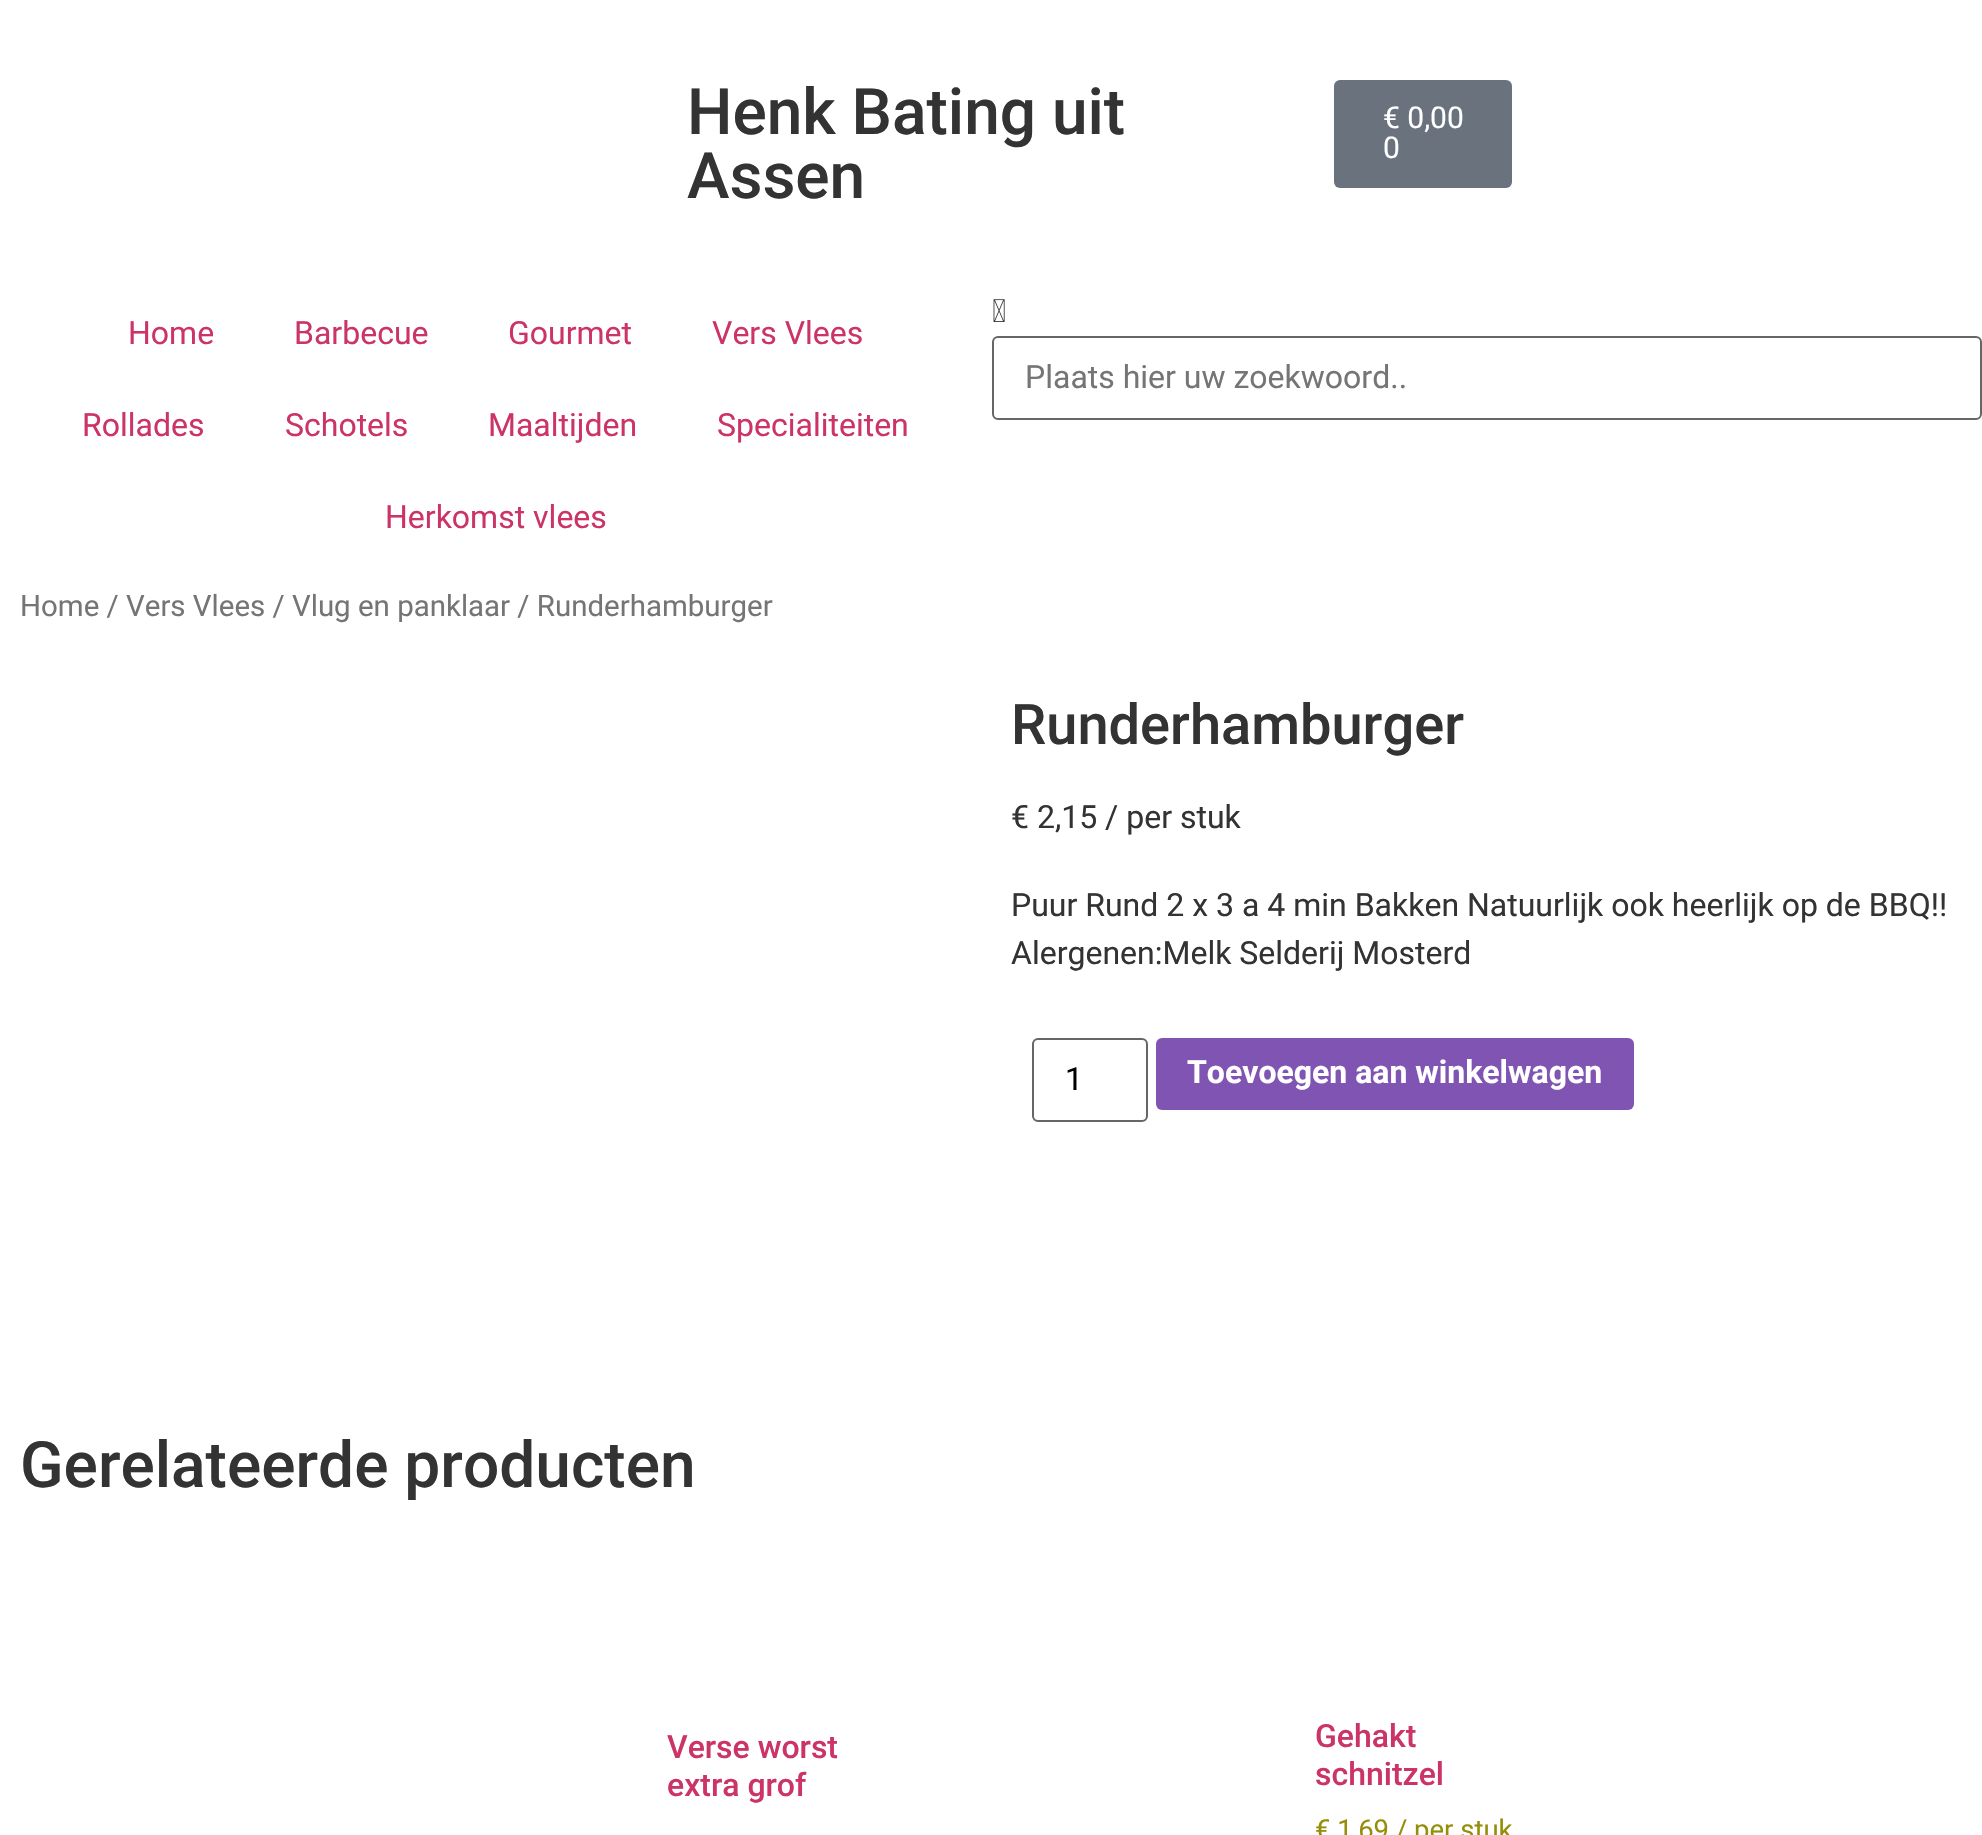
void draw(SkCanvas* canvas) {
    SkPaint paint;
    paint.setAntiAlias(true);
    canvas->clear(0xFFFFFFFF);
    SkFont font1(fontMgr->matchFamilyStyle("Roboto", SkFontStyle(500, SkFontStyle::kNormal_Width, SkFontStyle::kUpright_Slant)), 64);
    font1.setSubpixel(true);
    paint.setColor(0xFF333333);
    canvas->drawString("Henk Bating uit", 687, 134, font1, paint);
    canvas->drawString("Assen", 687, 198, font1, paint);
    paint.setColor(0xFF69727D);
    canvas->drawRoundRect(SkRect::MakeXYWH(1334, 80, 178, 108), 6, 6, paint);
    SkFont font2(fontMgr->matchFamilyStyle("Roboto", SkFontStyle::Normal()), 30);
    font2.setSubpixel(true);
    paint.setColor(0xFFFFFFFF);
    canvas->drawString("€ 0,00", 1383, 128, font2, paint);
    canvas->drawString("0", 1383, 158, font2, paint);
    SkFont font3(fontMgr->matchFamilyStyle("Roboto", SkFontStyle::Normal()), 32);
    font3.setSubpixel(true);
    paint.setColor(0xFFCC3366);
    canvas->drawString("Home", 128, 344, font3, paint);
    canvas->drawString("Barbecue", 294, 344, font3, paint);
    canvas->drawString("Gourmet", 508, 344, font3, paint);
    canvas->drawString("Vers Vlees", 712, 344, font3, paint);
    canvas->drawString("Rollades", 82, 436, font3, paint);
    canvas->drawString("Schotels", 285, 436, font3, paint);
    canvas->drawString("Maaltijden", 488, 436, font3, paint);
    canvas->drawString("Specialiteiten", 717, 436, font3, paint);
    canvas->drawString("Herkomst vlees", 385, 528, font3, paint);
    canvas->drawImageRect(SkImages::DeferredFromEncodedData(SkData::MakeFromFileName("img1.png")), SkRect::MakeXYWH(993, 299, 12, 23), SkSamplingOptions());
    paint.setStyle(SkPaint::kStroke_Style);
    paint.setStrokeWidth(2);
    paint.setColor(0xFF666666);
    canvas->drawRoundRect(SkRect::MakeXYWH(993, 337, 988, 82), 5, 5, paint);
    paint.setStyle(SkPaint::kFill_Style);
    paint.setColor(0xFF757575);
    canvas->drawString("Plaats hier uw zoekwoord..", 1025, 388, font3, paint);
    SkFont font4(fontMgr->matchFamilyStyle("Roboto", SkFontStyle::Normal()), 29.45f);
    font4.setSubpixel(true);
    canvas->drawString("Home / Vers Vlees / Vlug en panklaar / Runderhamburger", 20, 616, font4, paint);
    SkFont font5(fontMgr->matchFamilyStyle("Roboto", SkFontStyle(500, SkFontStyle::kNormal_Width, SkFontStyle::kUpright_Slant)), 56);
    font5.setSubpixel(true);
    paint.setColor(0xFF333333);
    canvas->drawString("Runderhamburger", 1011, 744, font5, paint);
    canvas->drawString("€ 2,15 / per stuk", 1011, 828, font3, paint);
    canvas->drawString("Puur Rund 2 x 3 a 4 min Bakken Natuurlijk ook heerlijk op de BBQ!!", 1011, 916, font3, paint);
    canvas->drawString("Alergenen:Melk Selderij Mosterd", 1011, 964, font3, paint);
    paint.setStyle(SkPaint::kStroke_Style);
    paint.setColor(0xFF666666);
    canvas->drawRoundRect(SkRect::MakeXYWH(1033, 1039, 114, 82), 5, 5, paint);
    paint.setStyle(SkPaint::kFill_Style);
    paint.setColor(0xFF000000);
    canvas->drawString("1", 1065, 1090, font3, paint);
    paint.setColor(0xFF7F54B3);
    canvas->drawRoundRect(SkRect::MakeXYWH(1156, 1038, 478, 72), 6, 6, paint);
    SkFont font6(fontMgr->matchFamilyStyle("Roboto", SkFontStyle::Bold()), 32);
    font6.setSubpixel(true);
    paint.setColor(0xFFFFFFFF);
    canvas->drawString("Toevoegen aan winkelwagen", 1187, 1083, font6, paint);
    paint.setColor(0xFF333333);
    canvas->drawString("Gerelateerde producten", 20, 1487, font1, paint);
    SkFont font7(fontMgr->matchFamilyStyle("Roboto", SkFontStyle(500, SkFontStyle::kNormal_Width, SkFontStyle::kUpright_Slant)), 32);
    font7.setSubpixel(true);
    paint.setColor(0xFFCC3366);
    canvas->drawString("Verse worst", 667, 1758, font7, paint);
    canvas->drawString("extra grof", 667, 1796, font7, paint);
    canvas->drawString("Gehakt", 1315, 1747, font7, paint);
    canvas->drawString("schnitzel", 1315, 1785, font7, paint);
    SkFont font8(fontMgr->matchFamilyStyle("Roboto", SkFontStyle::Normal()), 27.5f);
    font8.setSubpixel(true);
    paint.setColor(0xFF958E09);
    canvas->drawString("€ 1,69 / per stuk", 1315, 1839, font8, paint);
}
